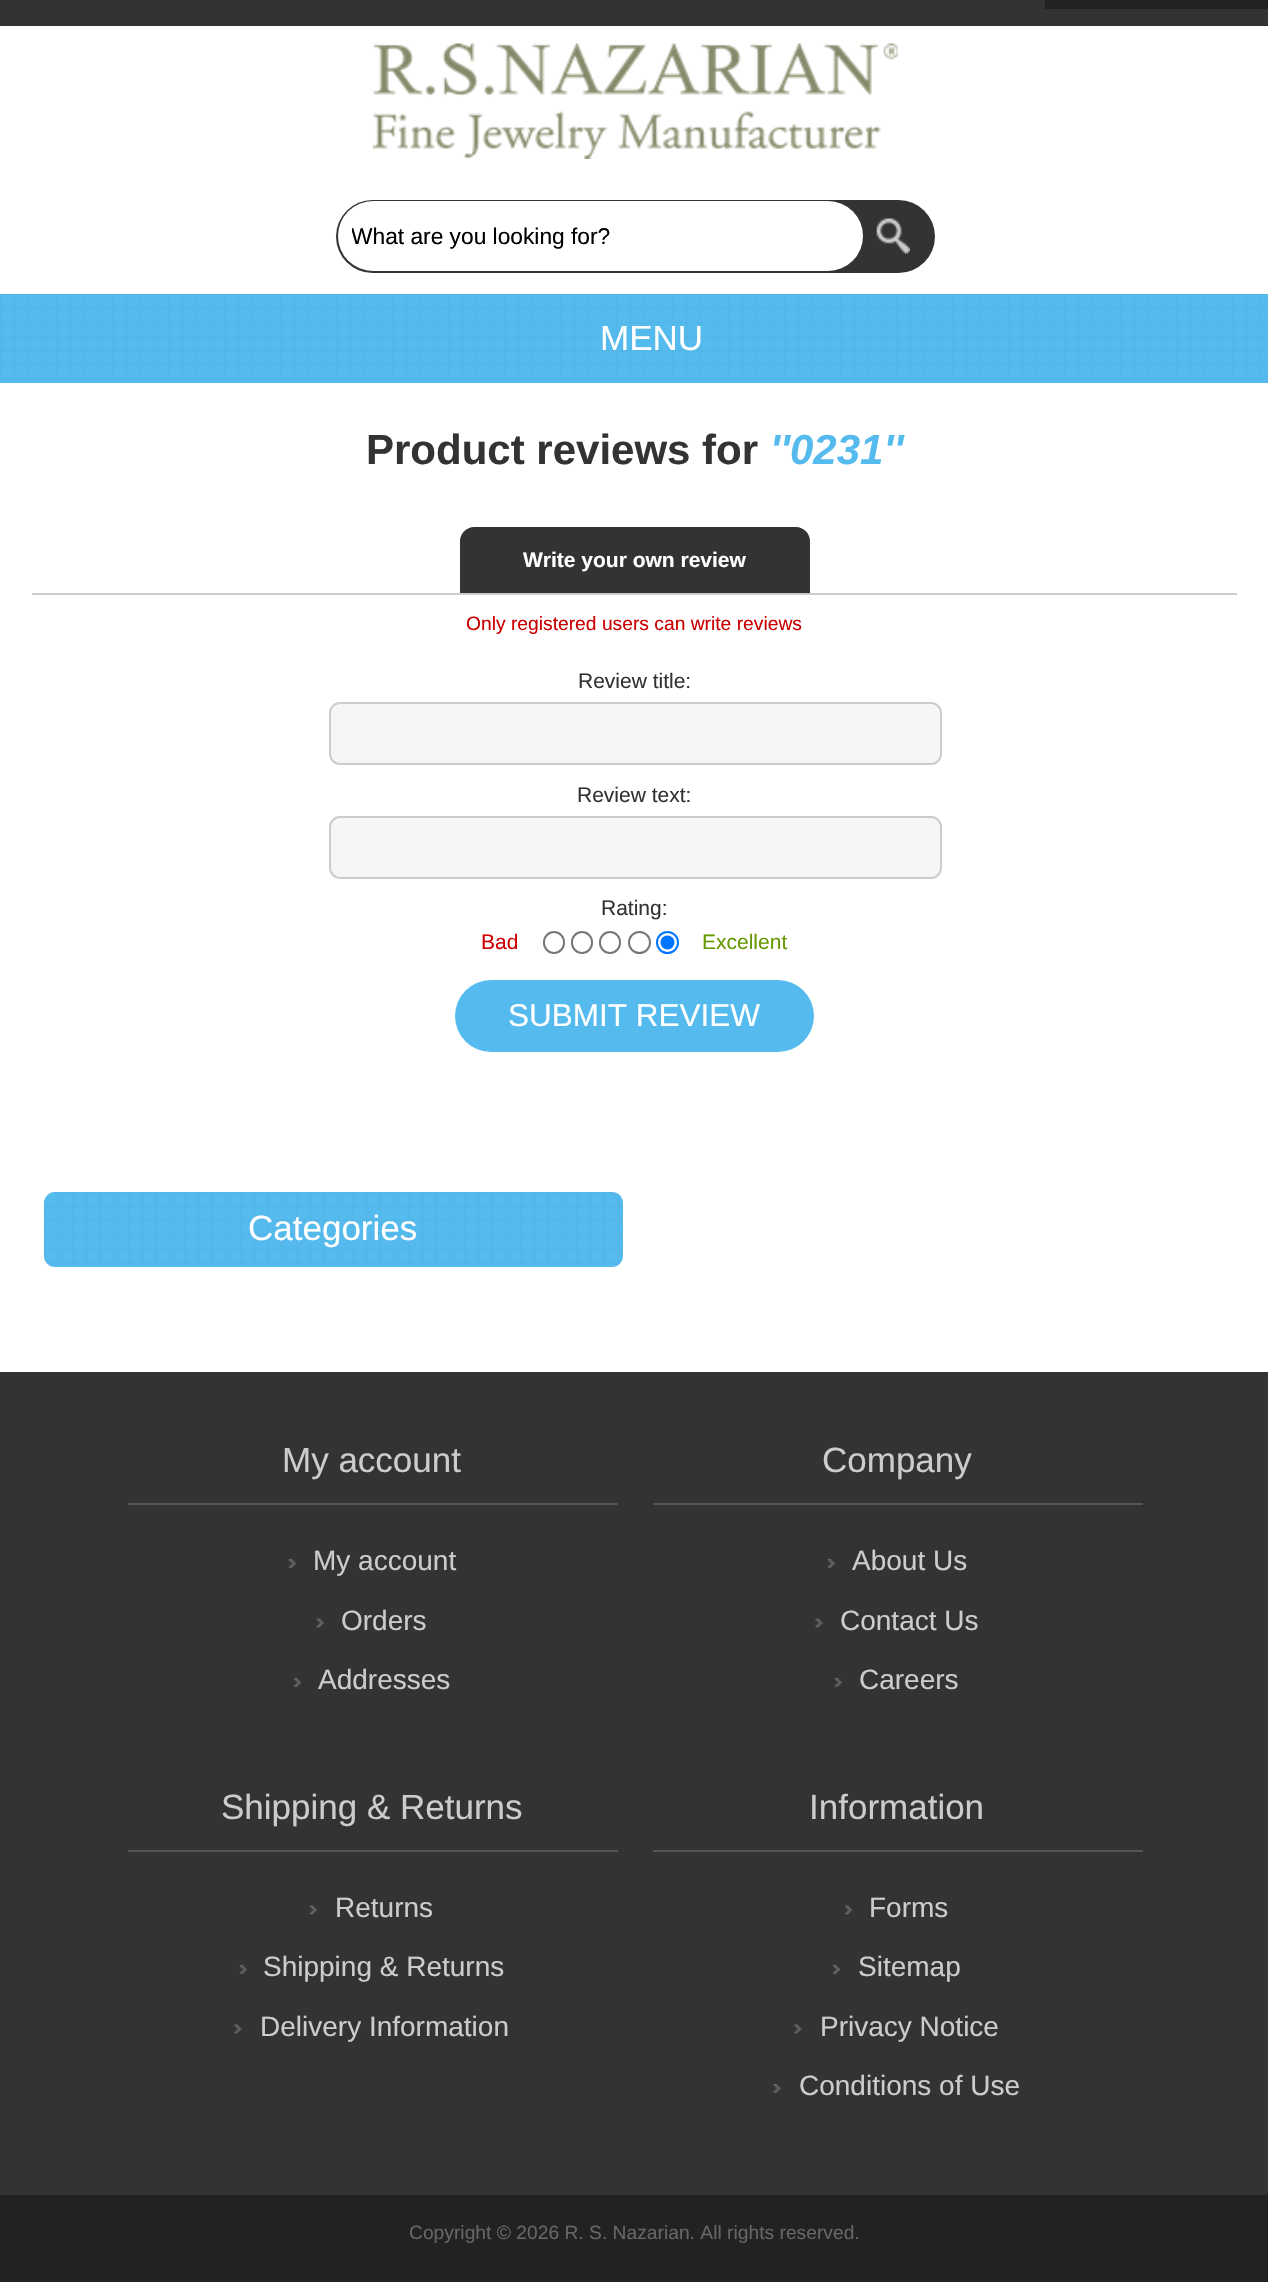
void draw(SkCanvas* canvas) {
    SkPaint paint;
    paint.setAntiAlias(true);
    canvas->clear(0xFFFFFFFF);
    paint.setColor(0xFF333333);
    canvas->drawRect(SkRect::MakeXYWH(0, 0, 1268, 26), paint);
    paint.setColor(0xFF222222);
    canvas->drawRect(SkRect::MakeXYWH(1045, 0, 223, 9), paint);
    canvas->drawImageRect(SkImages::DeferredFromEncodedData(SkData::MakeFromFileName("img1.png")), SkRect::MakeXYWH(372, 43, 526, 116), SkSamplingOptions());
    paint.setColor(0xFF333333);
    canvas->drawRoundRect(SkRect::MakeXYWH(336, 200, 599, 73), 36.5f, 36.5f, paint);
    paint.setColor(0xFFFFFFFF);
    canvas->drawRoundRect(SkRect::MakeXYWH(338, 201, 525, 70), 35, 35, paint);
    canvas->save();
    canvas->clipRect(SkRect::MakeXYWH(352, 224, 497, 26));
    SkFont font1(fontMgr->matchFamilyStyle("Liberation Sans", SkFontStyle::Normal()), 22.75f);
    font1.setSubpixel(true);
    paint.setColor(0xFF000000);
    canvas->drawString("What are you looking for?", 351, 244, font1, paint);
    canvas->restore();
    canvas->drawImageRect(SkImages::DeferredFromEncodedData(SkData::MakeFromFileName("img2.png")), SkRect::MakeXYWH(876, 218, 34, 36), SkSamplingOptions());
    paint.setColor(0xFF55BBEE);
    canvas->drawRect(SkRect::MakeXYWH(0, 294, 1268, 89), paint);
    canvas->drawImageRect(SkImages::DeferredFromEncodedData(SkData::MakeFromFileName("img3.png")), SkRect::MakeXYWH(0, 294, 1268, 86), SkSamplingOptions());
    SkFont font2(fontMgr->matchFamilyStyle("Liberation Sans", SkFontStyle::Normal()), 35);
    font2.setSubpixel(true);
    paint.setColor(0xFFFFFFFF);
    canvas->drawString("MENU", 600, 350, font2, paint);
    SkFont font3(fontMgr->matchFamilyStyle("Liberation Sans", SkFontStyle::Bold()), 42);
    font3.setSubpixel(true);
    paint.setColor(0xFF333333);
    canvas->drawString("Product reviews for", 366, 464, font3, paint);
    SkFont font4(fontMgr->matchFamilyStyle("Liberation Sans", SkFontStyle::BoldItalic()), 42);
    font4.setSubpixel(true);
    paint.setColor(0xFF55BBEE);
    canvas->drawString("''0231''", 770, 464, font4, paint);
    paint.setColor(0xFFCCCCCC);
    canvas->drawRect(SkRect::MakeXYWH(32, 593, 1205, 2), paint);
    paint.setColor(0xFF333333);
    canvas->drawPath(SkPathBuilder().moveTo(474, 527).lineTo(796, 527).cubicTo(803.5f, 527, 810, 533.5f, 810, 541).lineTo(810, 593).lineTo(460, 593).lineTo(460, 541).cubicTo(460, 533.5f, 466.5f, 527, 474, 527).close().detach(), paint);
    SkFont font5(fontMgr->matchFamilyStyle("Liberation Sans", SkFontStyle::Bold()), 21);
    font5.setSubpixel(true);
    paint.setColor(0xFFFFFFFF);
    canvas->drawString("Write your own review", 523, 567, font5, paint);
    SkFont font6(fontMgr->matchFamilyStyle("Liberation Sans", SkFontStyle::Normal()), 19.25f);
    font6.setSubpixel(true);
    paint.setColor(0xFFCC0000);
    canvas->drawString("Only registered users can write reviews", 466, 630, font6, paint);
    SkFont font7(fontMgr->matchFamilyStyle("Liberation Sans", SkFontStyle::Normal()), 21);
    font7.setSubpixel(true);
    paint.setColor(0xFF333333);
    canvas->drawString("Review title:", 578, 688, font7, paint);
    paint.setColor(0xFFF6F6F6);
    canvas->drawRoundRect(SkRect::MakeXYWH(330, 703, 611, 61), 10, 10, paint);
    paint.setStyle(SkPaint::kStroke_Style);
    paint.setStrokeWidth(2);
    paint.setColor(0xFFCCCCCC);
    canvas->drawRoundRect(SkRect::MakeXYWH(330, 703, 611, 61), 10, 10, paint);
    paint.setStyle(SkPaint::kFill_Style);
    paint.setColor(0xFF333333);
    canvas->drawString("Review text:", 577, 802, font7, paint);
    paint.setColor(0xFFF6F6F6);
    canvas->drawRoundRect(SkRect::MakeXYWH(330, 817, 611, 61), 10, 10, paint);
    paint.setStyle(SkPaint::kStroke_Style);
    paint.setColor(0xFFCCCCCC);
    canvas->drawRoundRect(SkRect::MakeXYWH(330, 817, 611, 61), 10, 10, paint);
    paint.setStyle(SkPaint::kFill_Style);
    paint.setColor(0xFF333333);
    canvas->drawString("Rating:", 601, 915, font7, paint);
    paint.setColor(0xFFCC0000);
    canvas->drawString("Bad", 481, 949, font7, paint);
    paint.setStyle(SkPaint::kStroke_Style);
    paint.setColor(0xFF767676);
    canvas->drawRoundRect(SkRect::MakeXYWH(544, 932, 20, 21), 10, 10, paint);
    canvas->drawRoundRect(SkRect::MakeXYWH(572, 932, 20, 21), 10, 10, paint);
    canvas->drawRoundRect(SkRect::MakeXYWH(600, 932, 20, 21), 10, 10, paint);
    canvas->drawCircle(639.5f, 942.5f, 10.5f, paint);
    paint.setColor(0xFF0075FF);
    canvas->drawCircle(667.5f, 942.5f, 10.5f, paint);
    paint.setStyle(SkPaint::kFill_Style);
    canvas->drawCircle(667.5f, 942.5f, 7, paint);
    paint.setColor(0xFF669900);
    canvas->drawString("Excellent", 702, 949, font7, paint);
    paint.setColor(0xFF55BBEE);
    canvas->drawRoundRect(SkRect::MakeXYWH(455, 980, 359, 72), 36, 36, paint);
    SkFont font8(fontMgr->matchFamilyStyle("Liberation Sans", SkFontStyle::Normal()), 31.5f);
    font8.setSubpixel(true);
    paint.setColor(0xFFFFFFFF);
    canvas->drawString("SUBMIT REVIEW", 508, 1026, font8, paint);
    paint.setColor(0xFF55BBEE);
    canvas->drawRoundRect(SkRect::MakeXYWH(44, 1192, 579, 75), 11, 11, paint);
    canvas->drawImageRect(SkImages::DeferredFromEncodedData(SkData::MakeFromFileName("img4.png")), SkRect::MakeXYWH(44, 1192, 579, 74), SkSamplingOptions());
    paint.setColor(0xFFFFFFFF);
    canvas->drawString("Categories", 248, 1240, font2, paint);
    paint.setColor(0xFF333333);
    canvas->drawRect(SkRect::MakeXYWH(0, 1372, 1268, 823), paint);
    paint.setColor(0xFF555555);
    canvas->drawRect(SkRect::MakeXYWH(128, 1503, 490, 2), paint);
    paint.setColor(0xFFCCCCCC);
    canvas->drawString("My account", 282, 1472, font2, paint);
    canvas->drawImageRect(SkImages::DeferredFromEncodedData(SkData::MakeFromFileName("img5.png")), SkRect::MakeXYWH(288, 1559, 8, 9), SkSamplingOptions());
    SkFont font9(fontMgr->matchFamilyStyle("Liberation Sans", SkFontStyle::Normal()), 28);
    font9.setSubpixel(true);
    canvas->drawString("My account", 313, 1570, font9, paint);
    canvas->drawImageRect(SkImages::DeferredFromEncodedData(SkData::MakeFromFileName("img6.png")), SkRect::MakeXYWH(316, 1618, 8, 10), SkSamplingOptions());
    canvas->drawString("Orders", 341, 1630, font9, paint);
    canvas->drawImageRect(SkImages::DeferredFromEncodedData(SkData::MakeFromFileName("img7.png")), SkRect::MakeXYWH(294, 1678, 7, 9), SkSamplingOptions());
    canvas->drawString("Addresses", 318, 1689, font9, paint);
    paint.setColor(0xFF555555);
    canvas->drawRect(SkRect::MakeXYWH(653, 1503, 490, 2), paint);
    paint.setColor(0xFFCCCCCC);
    canvas->drawString("Company", 822, 1472, font2, paint);
    canvas->drawImageRect(SkImages::DeferredFromEncodedData(SkData::MakeFromFileName("img8.png")), SkRect::MakeXYWH(827, 1559, 8, 9), SkSamplingOptions());
    canvas->drawString("About Us", 852, 1570, font9, paint);
    canvas->drawImageRect(SkImages::DeferredFromEncodedData(SkData::MakeFromFileName("img9.png")), SkRect::MakeXYWH(815, 1618, 8, 10), SkSamplingOptions());
    canvas->drawString("Contact Us", 840, 1630, font9, paint);
    canvas->drawImageRect(SkImages::DeferredFromEncodedData(SkData::MakeFromFileName("img8.png")), SkRect::MakeXYWH(834, 1678, 8, 9), SkSamplingOptions());
    canvas->drawString("Careers", 859, 1689, font9, paint);
    paint.setColor(0xFF555555);
    canvas->drawRect(SkRect::MakeXYWH(128, 1850, 490, 2), paint);
    paint.setColor(0xFFCCCCCC);
    canvas->drawString("Shipping & Returns", 221, 1819, font2, paint);
    canvas->drawImageRect(SkImages::DeferredFromEncodedData(SkData::MakeFromFileName("img6.png")), SkRect::MakeXYWH(309, 1905, 8, 10), SkSamplingOptions());
    canvas->drawString("Returns", 335, 1917, font9, paint);
    canvas->drawImageRect(SkImages::DeferredFromEncodedData(SkData::MakeFromFileName("img5.png")), SkRect::MakeXYWH(239, 1965, 8, 9), SkSamplingOptions());
    canvas->drawString("Shipping & Returns", 263, 1976, font9, paint);
    canvas->drawImageRect(SkImages::DeferredFromEncodedData(SkData::MakeFromFileName("img9.png")), SkRect::MakeXYWH(234, 2024, 8, 10), SkSamplingOptions());
    canvas->drawString("Delivery Information", 260, 2036, font9, paint);
    paint.setColor(0xFF555555);
    canvas->drawRect(SkRect::MakeXYWH(653, 1850, 490, 2), paint);
    paint.setColor(0xFFCCCCCC);
    canvas->drawString("Information", 809, 1819, font2, paint);
    canvas->drawImageRect(SkImages::DeferredFromEncodedData(SkData::MakeFromFileName("img10.png")), SkRect::MakeXYWH(845, 1905, 8, 10), SkSamplingOptions());
    canvas->drawString("Forms", 869, 1917, font9, paint);
    canvas->drawImageRect(SkImages::DeferredFromEncodedData(SkData::MakeFromFileName("img11.png")), SkRect::MakeXYWH(833, 1965, 7, 9), SkSamplingOptions());
    canvas->drawString("Sitemap", 858, 1976, font9, paint);
    canvas->drawImageRect(SkImages::DeferredFromEncodedData(SkData::MakeFromFileName("img9.png")), SkRect::MakeXYWH(794, 2024, 8, 10), SkSamplingOptions());
    canvas->drawString("Privacy Notice", 820, 2036, font9, paint);
    canvas->drawImageRect(SkImages::DeferredFromEncodedData(SkData::MakeFromFileName("img12.png")), SkRect::MakeXYWH(773, 2084, 8, 9), SkSamplingOptions());
    canvas->drawString("Conditions of Use", 799, 2095, font9, paint);
    paint.setColor(0xFF222222);
    canvas->drawRect(SkRect::MakeXYWH(0, 2195, 1268, 87), paint);
    paint.setColor(0xFF666666);
    canvas->drawString("Copyright © 2026 R. S. Nazarian. All rights reserved.", 409, 2239, font6, paint);
}
